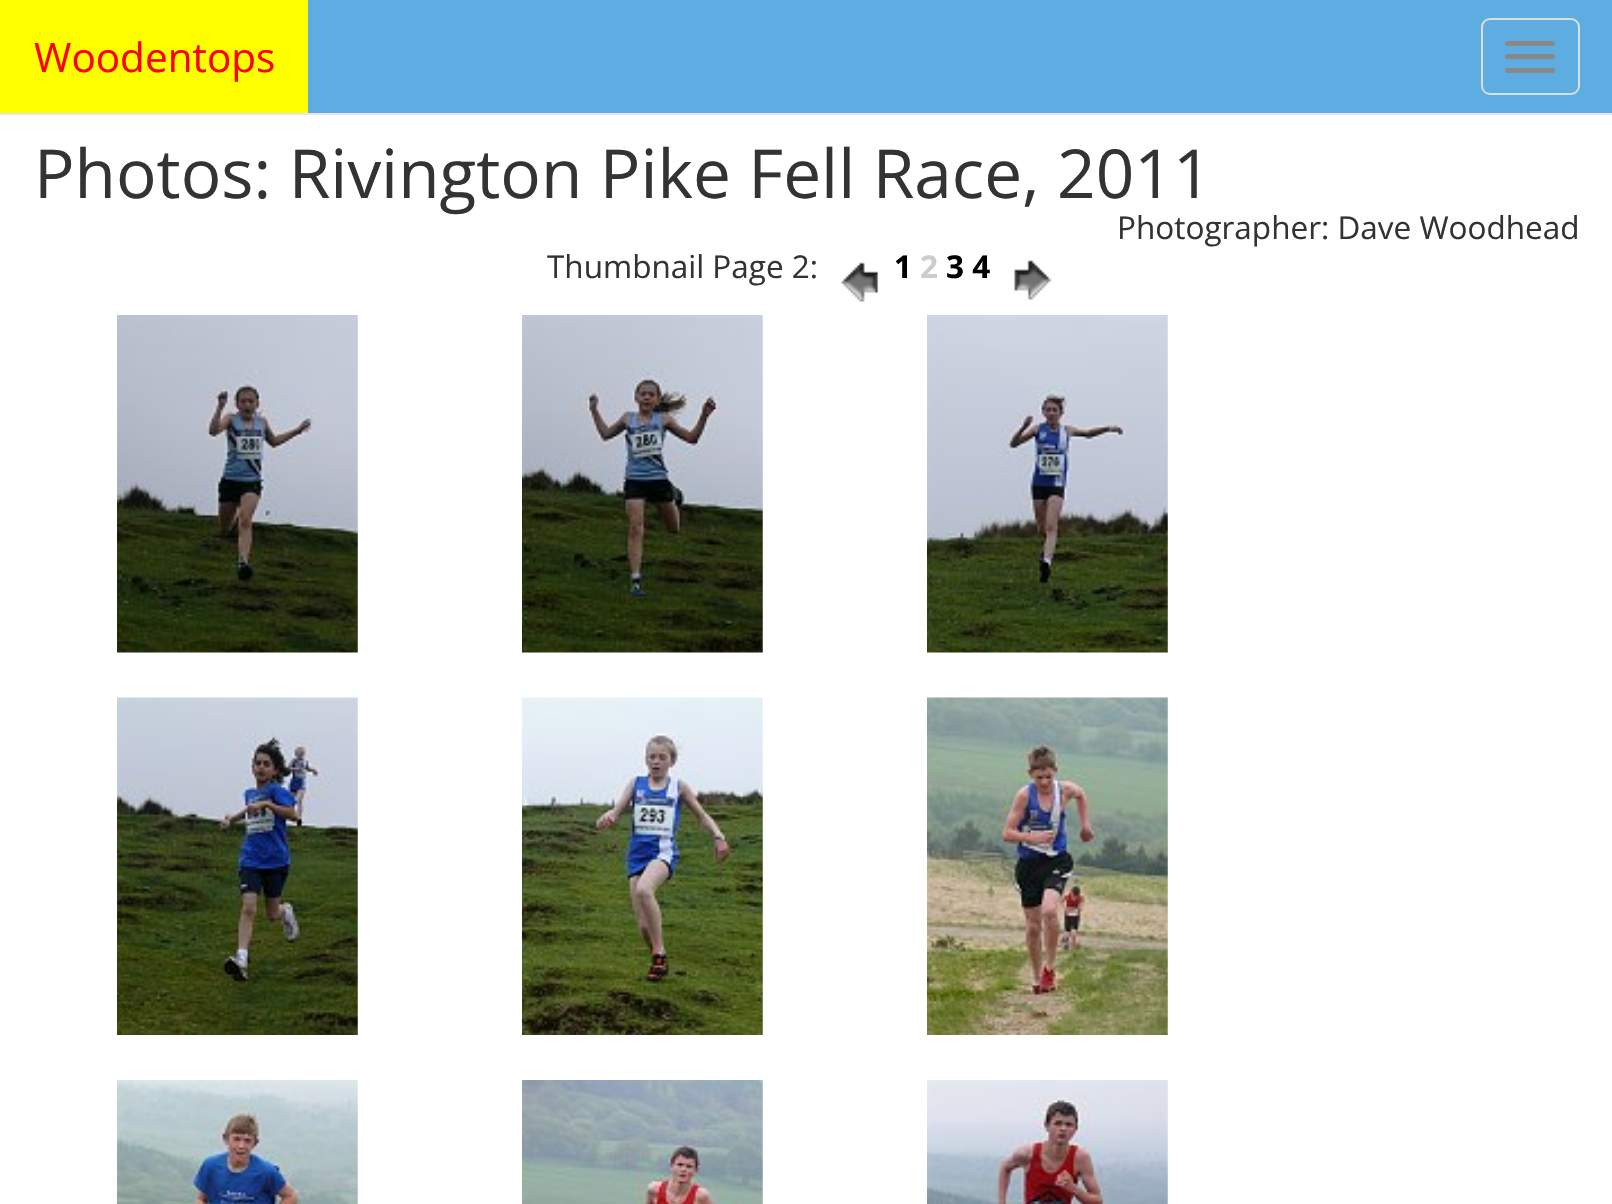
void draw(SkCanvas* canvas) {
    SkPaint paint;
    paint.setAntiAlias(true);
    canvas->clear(0xFFFFFFFF);
    paint.setColor(0xFF5DADE2);
    canvas->drawRect(SkRect::MakeXYWH(308, 0, 1304, 113), paint);
    paint.setColor(0xFFE7E7E7);
    canvas->drawRect(SkRect::MakeXYWH(0, 113, 1612, 2), paint);
    paint.setColor(0xFFFFFF00);
    canvas->drawRect(SkRect::MakeXYWH(0, 0, 308, 113), paint);
    SkFont font1(fontMgr->matchFamilyStyle("Open Sans", SkFontStyle::Normal()), 40.5f);
    font1.setSubpixel(true);
    paint.setColor(0xFFFF0000);
    canvas->drawString("Woodentops", 34, 72, font1, paint);
    paint.setStyle(SkPaint::kStroke_Style);
    paint.setStrokeWidth(2);
    paint.setColor(0xFFDDDDDD);
    canvas->drawRoundRect(SkRect::MakeXYWH(1482, 19, 97, 75), 8, 8, paint);
    paint.setStyle(SkPaint::kFill_Style);
    paint.setColor(0xFF888888);
    canvas->drawRoundRect(SkRect::MakeXYWH(1505, 41, 50, 5), 2.5f, 2.5f, paint);
    canvas->drawRoundRect(SkRect::MakeXYWH(1505, 54, 50, 5), 2.5f, 2.5f, paint);
    canvas->drawRoundRect(SkRect::MakeXYWH(1505, 68, 50, 5), 2.5f, 2.5f, paint);
    SkFont font2(fontMgr->matchFamilyStyle("Open Sans", SkFontStyle::Normal()), 67.5f);
    font2.setSubpixel(true);
    paint.setColor(0xFF333333);
    canvas->drawString("Photos: Rivington Pike Fell Race, 2011", 34, 198, font2, paint);
    SkFont font3(fontMgr->matchFamilyStyle("Open Sans", SkFontStyle::Normal()), 31.5f);
    font3.setSubpixel(true);
    canvas->drawString("Photographer: Dave Woodhead", 1117, 239, font3, paint);
    canvas->drawString("Thumbnail Page 2:", 547, 278, font3, paint);
    canvas->drawImageRect(SkImages::DeferredFromEncodedData(SkData::MakeFromFileName("img1.png")), SkRect::MakeXYWH(841, 262, 38, 41), SkSamplingOptions());
    SkFont font4(fontMgr->matchFamilyStyle("Open Sans", SkFontStyle::Bold()), 31.5f);
    font4.setSubpixel(true);
    paint.setColor(0xFF000000);
    canvas->drawString("1", 894, 278, font4, paint);
    paint.setColor(0xFFCCCCCC);
    canvas->drawString("2", 920, 278, font4, paint);
    paint.setColor(0xFF000000);
    canvas->drawString("3 4", 946, 278, font4, paint);
    canvas->drawImageRect(SkImages::DeferredFromEncodedData(SkData::MakeFromFileName("img2.png")), SkRect::MakeXYWH(1014, 260, 38, 40), SkSamplingOptions());
    canvas->drawImageRect(SkImages::DeferredFromEncodedData(SkData::MakeFromFileName("img3.png")), SkRect::MakeXYWH(117, 315, 241, 338), SkSamplingOptions());
    canvas->drawImageRect(SkImages::DeferredFromEncodedData(SkData::MakeFromFileName("img4.png")), SkRect::MakeXYWH(522, 315, 241, 338), SkSamplingOptions());
    canvas->drawImageRect(SkImages::DeferredFromEncodedData(SkData::MakeFromFileName("img5.png")), SkRect::MakeXYWH(927, 315, 241, 338), SkSamplingOptions());
    canvas->drawImageRect(SkImages::DeferredFromEncodedData(SkData::MakeFromFileName("img6.png")), SkRect::MakeXYWH(117, 697, 241, 338), SkSamplingOptions());
    canvas->drawImageRect(SkImages::DeferredFromEncodedData(SkData::MakeFromFileName("img7.png")), SkRect::MakeXYWH(522, 697, 241, 338), SkSamplingOptions());
    canvas->drawImageRect(SkImages::DeferredFromEncodedData(SkData::MakeFromFileName("img8.png")), SkRect::MakeXYWH(927, 697, 241, 338), SkSamplingOptions());
    canvas->drawImageRect(SkImages::DeferredFromEncodedData(SkData::MakeFromFileName("img9.png")), SkRect::MakeXYWH(117, 1080, 241, 124), SkSamplingOptions());
    canvas->drawImageRect(SkImages::DeferredFromEncodedData(SkData::MakeFromFileName("img10.png")), SkRect::MakeXYWH(522, 1080, 241, 124), SkSamplingOptions());
    canvas->drawImageRect(SkImages::DeferredFromEncodedData(SkData::MakeFromFileName("img11.png")), SkRect::MakeXYWH(927, 1080, 241, 124), SkSamplingOptions());
}
